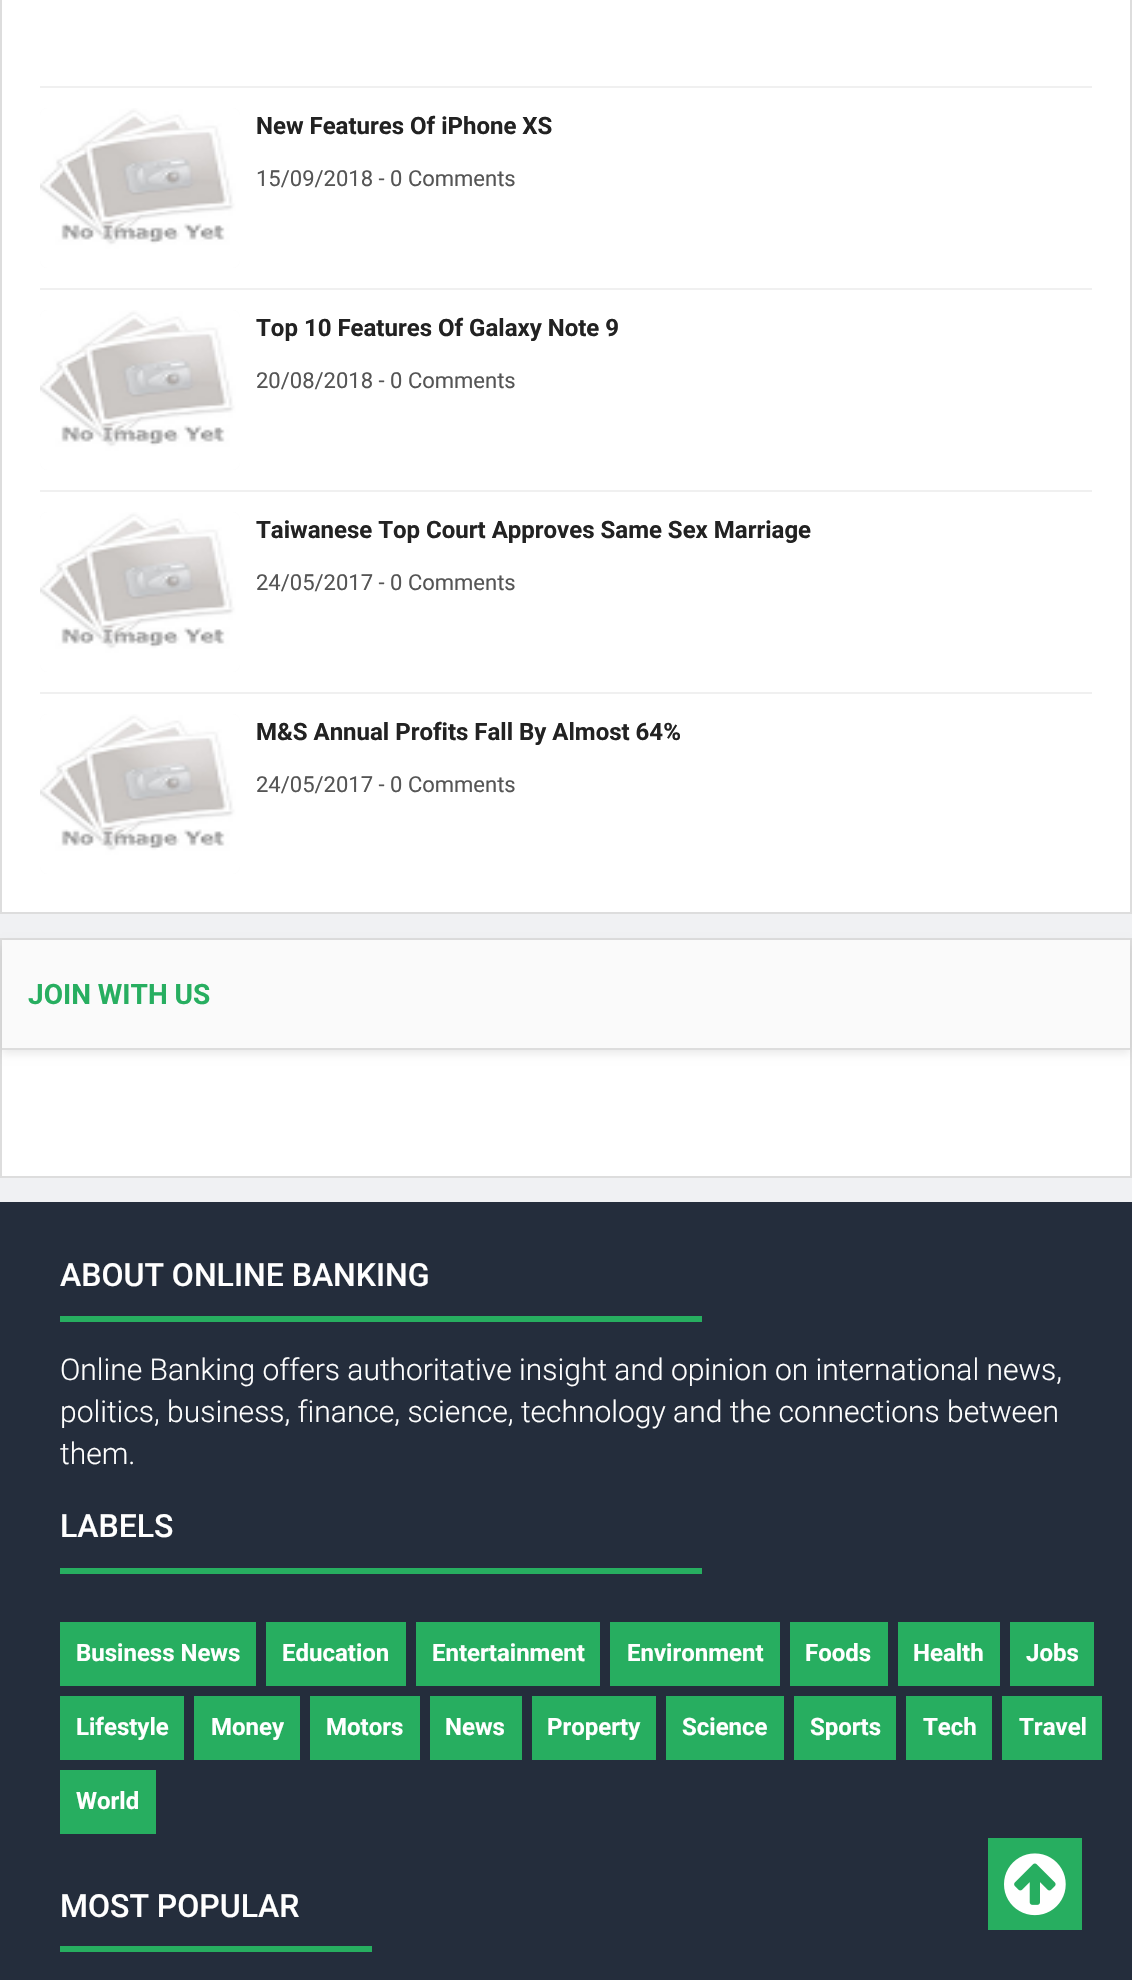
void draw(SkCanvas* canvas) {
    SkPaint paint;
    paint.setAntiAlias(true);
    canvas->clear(0xFFF0F1F3);
    paint.setColor(0xFFFFFFFF);
    canvas->drawRect(SkRect::MakeXYWH(1, -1, 1130, 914), paint);
    paint.setStyle(SkPaint::kStroke_Style);
    paint.setStrokeWidth(2);
    paint.setColor(0xFFDDDDDD);
    canvas->drawRect(SkRect::MakeXYWH(1, -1, 1130, 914), paint);
    paint.setStyle(SkPaint::kFill_Style);
    paint.setColor(0xFFF0F0F0);
    canvas->drawRect(SkRect::MakeXYWH(40, 86, 1052, 2), paint);
    canvas->drawRect(SkRect::MakeXYWH(40, 288, 1052, 2), paint);
    paint.setColor(0xFFFAFAFA);
    canvas->drawRoundRect(SkRect::MakeXYWH(40, 108, 200, 160), 8, 8, paint);
    canvas->drawImageRect(SkImages::DeferredFromEncodedData(SkData::MakeFromFileName("img1.png")), SkRect::MakeXYWH(40, 108, 200, 160), SkSamplingOptions());
    SkFont font1(fontMgr->matchFamilyStyle("Roboto", SkFontStyle::Bold()), 24);
    font1.setSubpixel(true);
    paint.setColor(0xFF222222);
    canvas->drawString("New Features Of iPhone XS", 256, 134, font1, paint);
    SkFont font2(fontMgr->matchFamilyStyle("Roboto", SkFontStyle::Normal()), 22);
    font2.setSubpixel(true);
    paint.setColor(0xFF555555);
    canvas->drawString("15/09/2018 - 0 Comments", 256, 186, font2, paint);
    paint.setColor(0xFFF0F0F0);
    canvas->drawRect(SkRect::MakeXYWH(40, 490, 1052, 2), paint);
    paint.setColor(0xFFFAFAFA);
    canvas->drawRoundRect(SkRect::MakeXYWH(40, 310, 200, 160), 8, 8, paint);
    canvas->drawImageRect(SkImages::DeferredFromEncodedData(SkData::MakeFromFileName("img2.png")), SkRect::MakeXYWH(40, 310, 200, 160), SkSamplingOptions());
    paint.setColor(0xFF222222);
    canvas->drawString("Top 10 Features Of Galaxy Note 9", 256, 336, font1, paint);
    paint.setColor(0xFF555555);
    canvas->drawString("20/08/2018 - 0 Comments", 256, 388, font2, paint);
    paint.setColor(0xFFF0F0F0);
    canvas->drawRect(SkRect::MakeXYWH(40, 692, 1052, 2), paint);
    paint.setColor(0xFFFAFAFA);
    canvas->drawRoundRect(SkRect::MakeXYWH(40, 512, 200, 160), 8, 8, paint);
    canvas->drawImageRect(SkImages::DeferredFromEncodedData(SkData::MakeFromFileName("img1.png")), SkRect::MakeXYWH(40, 512, 200, 160), SkSamplingOptions());
    paint.setColor(0xFF222222);
    canvas->drawString("Taiwanese Top Court Approves Same Sex Marriage", 256, 538, font1, paint);
    paint.setColor(0xFF555555);
    canvas->drawString("24/05/2017 - 0 Comments", 256, 590, font2, paint);
    paint.setColor(0xFFFAFAFA);
    canvas->drawRoundRect(SkRect::MakeXYWH(40, 714, 200, 160), 8, 8, paint);
    canvas->drawImageRect(SkImages::DeferredFromEncodedData(SkData::MakeFromFileName("img3.png")), SkRect::MakeXYWH(40, 714, 200, 160), SkSamplingOptions());
    paint.setColor(0xFF222222);
    canvas->drawString("M&S Annual Profits Fall By Almost 64%", 256, 740, font1, paint);
    paint.setColor(0xFF555555);
    canvas->drawString("24/05/2017 - 0 Comments", 256, 792, font2, paint);
    paint.setColor(0xFFFFFFFF);
    canvas->drawRect(SkRect::MakeXYWH(2, 1050, 1128, 126), paint);
    paint.setStyle(SkPaint::kStroke_Style);
    paint.setColor(0xFFDDDDDD);
    canvas->drawRect(SkRect::MakeXYWH(1, 939, 1130, 238), paint);
    paint.setStyle(SkPaint::kFill_Style);
    paint.setColor(0x14000000);
    paint.setMaskFilter(SkMaskFilter::MakeBlur(kNormal_SkBlurStyle, 4));
    canvas->drawRect(SkRect::MakeXYWH(2, 944, 1128, 110), paint);
    paint.setMaskFilter(nullptr);
    paint.setColor(0xFFFAFAFA);
    canvas->drawRect(SkRect::MakeXYWH(2, 940, 1128, 108), paint);
    paint.setColor(0xFFDDDDDD);
    canvas->drawRect(SkRect::MakeXYWH(2, 1048, 1128, 2), paint);
    SkFont font3(fontMgr->matchFamilyStyle("Roboto", SkFontStyle::Bold()), 28);
    font3.setSubpixel(true);
    paint.setColor(0xFF27AE60);
    canvas->drawString("JOIN WITH US", 28, 1004, font3, paint);
    paint.setColor(0xFF242D3C);
    canvas->drawRect(SkRect::MakeXYWH(0, 1202, 1132, 778), paint);
    SkFont font4(fontMgr->matchFamilyStyle("Roboto", SkFontStyle(500, SkFontStyle::kNormal_Width, SkFontStyle::kUpright_Slant)), 32);
    font4.setSubpixel(true);
    paint.setColor(0xFFFFFFFF);
    canvas->drawString("ABOUT ONLINE BANKING", 60, 1286, font4, paint);
    paint.setColor(0xFF27AE60);
    canvas->drawRect(SkRect::MakeXYWH(60, 1316, 642, 6), paint);
    SkFont font5(fontMgr->matchFamilyStyle("Roboto", SkFontStyle(300, SkFontStyle::kNormal_Width, SkFontStyle::kUpright_Slant)), 30);
    font5.setSubpixel(true);
    paint.setColor(0xFFFFFFFF);
    canvas->drawString("Online Banking offers authoritative insight and opinion on international news,", 60, 1380, font5, paint);
    canvas->drawString("politics, business, finance, science, technology and the connections between", 60, 1422, font5, paint);
    canvas->drawString("them.", 60, 1464, font5, paint);
    canvas->drawString("LABELS", 60, 1537, font4, paint);
    paint.setColor(0xFF27AE60);
    canvas->drawRect(SkRect::MakeXYWH(60, 1568, 642, 6), paint);
    canvas->drawRect(SkRect::MakeXYWH(60, 1622, 196, 64), paint);
    paint.setColor(0xFFFFFFFF);
    canvas->drawString("Business News", 76, 1661, font1, paint);
    paint.setColor(0xFF27AE60);
    canvas->drawRect(SkRect::MakeXYWH(266, 1622, 140, 64), paint);
    paint.setColor(0xFFFFFFFF);
    canvas->drawString("Education", 282, 1661, font1, paint);
    paint.setColor(0xFF27AE60);
    canvas->drawRect(SkRect::MakeXYWH(416, 1622, 184, 64), paint);
    paint.setColor(0xFFFFFFFF);
    canvas->drawString("Entertainment", 432, 1661, font1, paint);
    paint.setColor(0xFF27AE60);
    canvas->drawRect(SkRect::MakeXYWH(610, 1622, 170, 64), paint);
    paint.setColor(0xFFFFFFFF);
    canvas->drawString("Environment", 627, 1661, font1, paint);
    paint.setColor(0xFF27AE60);
    canvas->drawRect(SkRect::MakeXYWH(790, 1622, 98, 64), paint);
    paint.setColor(0xFFFFFFFF);
    canvas->drawString("Foods", 805, 1661, font1, paint);
    paint.setColor(0xFF27AE60);
    canvas->drawRect(SkRect::MakeXYWH(898, 1622, 102, 64), paint);
    paint.setColor(0xFFFFFFFF);
    canvas->drawString("Health", 913, 1661, font1, paint);
    paint.setColor(0xFF27AE60);
    canvas->drawRect(SkRect::MakeXYWH(1010, 1622, 84, 64), paint);
    paint.setColor(0xFFFFFFFF);
    canvas->drawString("Jobs", 1026, 1661, font1, paint);
    paint.setColor(0xFF27AE60);
    canvas->drawRect(SkRect::MakeXYWH(60, 1696, 124, 64), paint);
    paint.setColor(0xFFFFFFFF);
    canvas->drawString("Lifestyle", 76, 1735, font1, paint);
    paint.setColor(0xFF27AE60);
    canvas->drawRect(SkRect::MakeXYWH(194, 1696, 106, 64), paint);
    paint.setColor(0xFFFFFFFF);
    canvas->drawString("Money", 211, 1735, font1, paint);
    paint.setColor(0xFF27AE60);
    canvas->drawRect(SkRect::MakeXYWH(310, 1696, 110, 64), paint);
    paint.setColor(0xFFFFFFFF);
    canvas->drawString("Motors", 326, 1735, font1, paint);
    paint.setColor(0xFF27AE60);
    canvas->drawRect(SkRect::MakeXYWH(430, 1696, 92, 64), paint);
    paint.setColor(0xFFFFFFFF);
    canvas->drawString("News", 445, 1735, font1, paint);
    paint.setColor(0xFF27AE60);
    canvas->drawRect(SkRect::MakeXYWH(532, 1696, 124, 64), paint);
    paint.setColor(0xFFFFFFFF);
    canvas->drawString("Property", 547, 1735, font1, paint);
    paint.setColor(0xFF27AE60);
    canvas->drawRect(SkRect::MakeXYWH(666, 1696, 118, 64), paint);
    paint.setColor(0xFFFFFFFF);
    canvas->drawString("Science", 682, 1735, font1, paint);
    paint.setColor(0xFF27AE60);
    canvas->drawRect(SkRect::MakeXYWH(794, 1696, 102, 64), paint);
    paint.setColor(0xFFFFFFFF);
    canvas->drawString("Sports", 810, 1735, font1, paint);
    paint.setColor(0xFF27AE60);
    canvas->drawRect(SkRect::MakeXYWH(906, 1696, 86, 64), paint);
    paint.setColor(0xFFFFFFFF);
    canvas->drawString("Tech", 923, 1735, font1, paint);
    paint.setColor(0xFF27AE60);
    canvas->drawRect(SkRect::MakeXYWH(1002, 1696, 100, 64), paint);
    paint.setColor(0xFFFFFFFF);
    canvas->drawString("Travel", 1019, 1735, font1, paint);
    paint.setColor(0xFF27AE60);
    canvas->drawRect(SkRect::MakeXYWH(60, 1770, 96, 64), paint);
    paint.setColor(0xFFFFFFFF);
    canvas->drawString("World", 76, 1809, font1, paint);
    canvas->drawString("MOST POPULAR", 60, 1917, font4, paint);
    paint.setColor(0xFF27AE60);
    canvas->drawRect(SkRect::MakeXYWH(60, 1946, 312, 6), paint);
    canvas->drawRect(SkRect::MakeXYWH(988, 1838, 94, 92), paint);
    canvas->drawImageRect(SkImages::DeferredFromEncodedData(SkData::MakeFromFileName("img4.png")), SkRect::MakeXYWH(1004, 1853, 62, 63), SkSamplingOptions());
}
